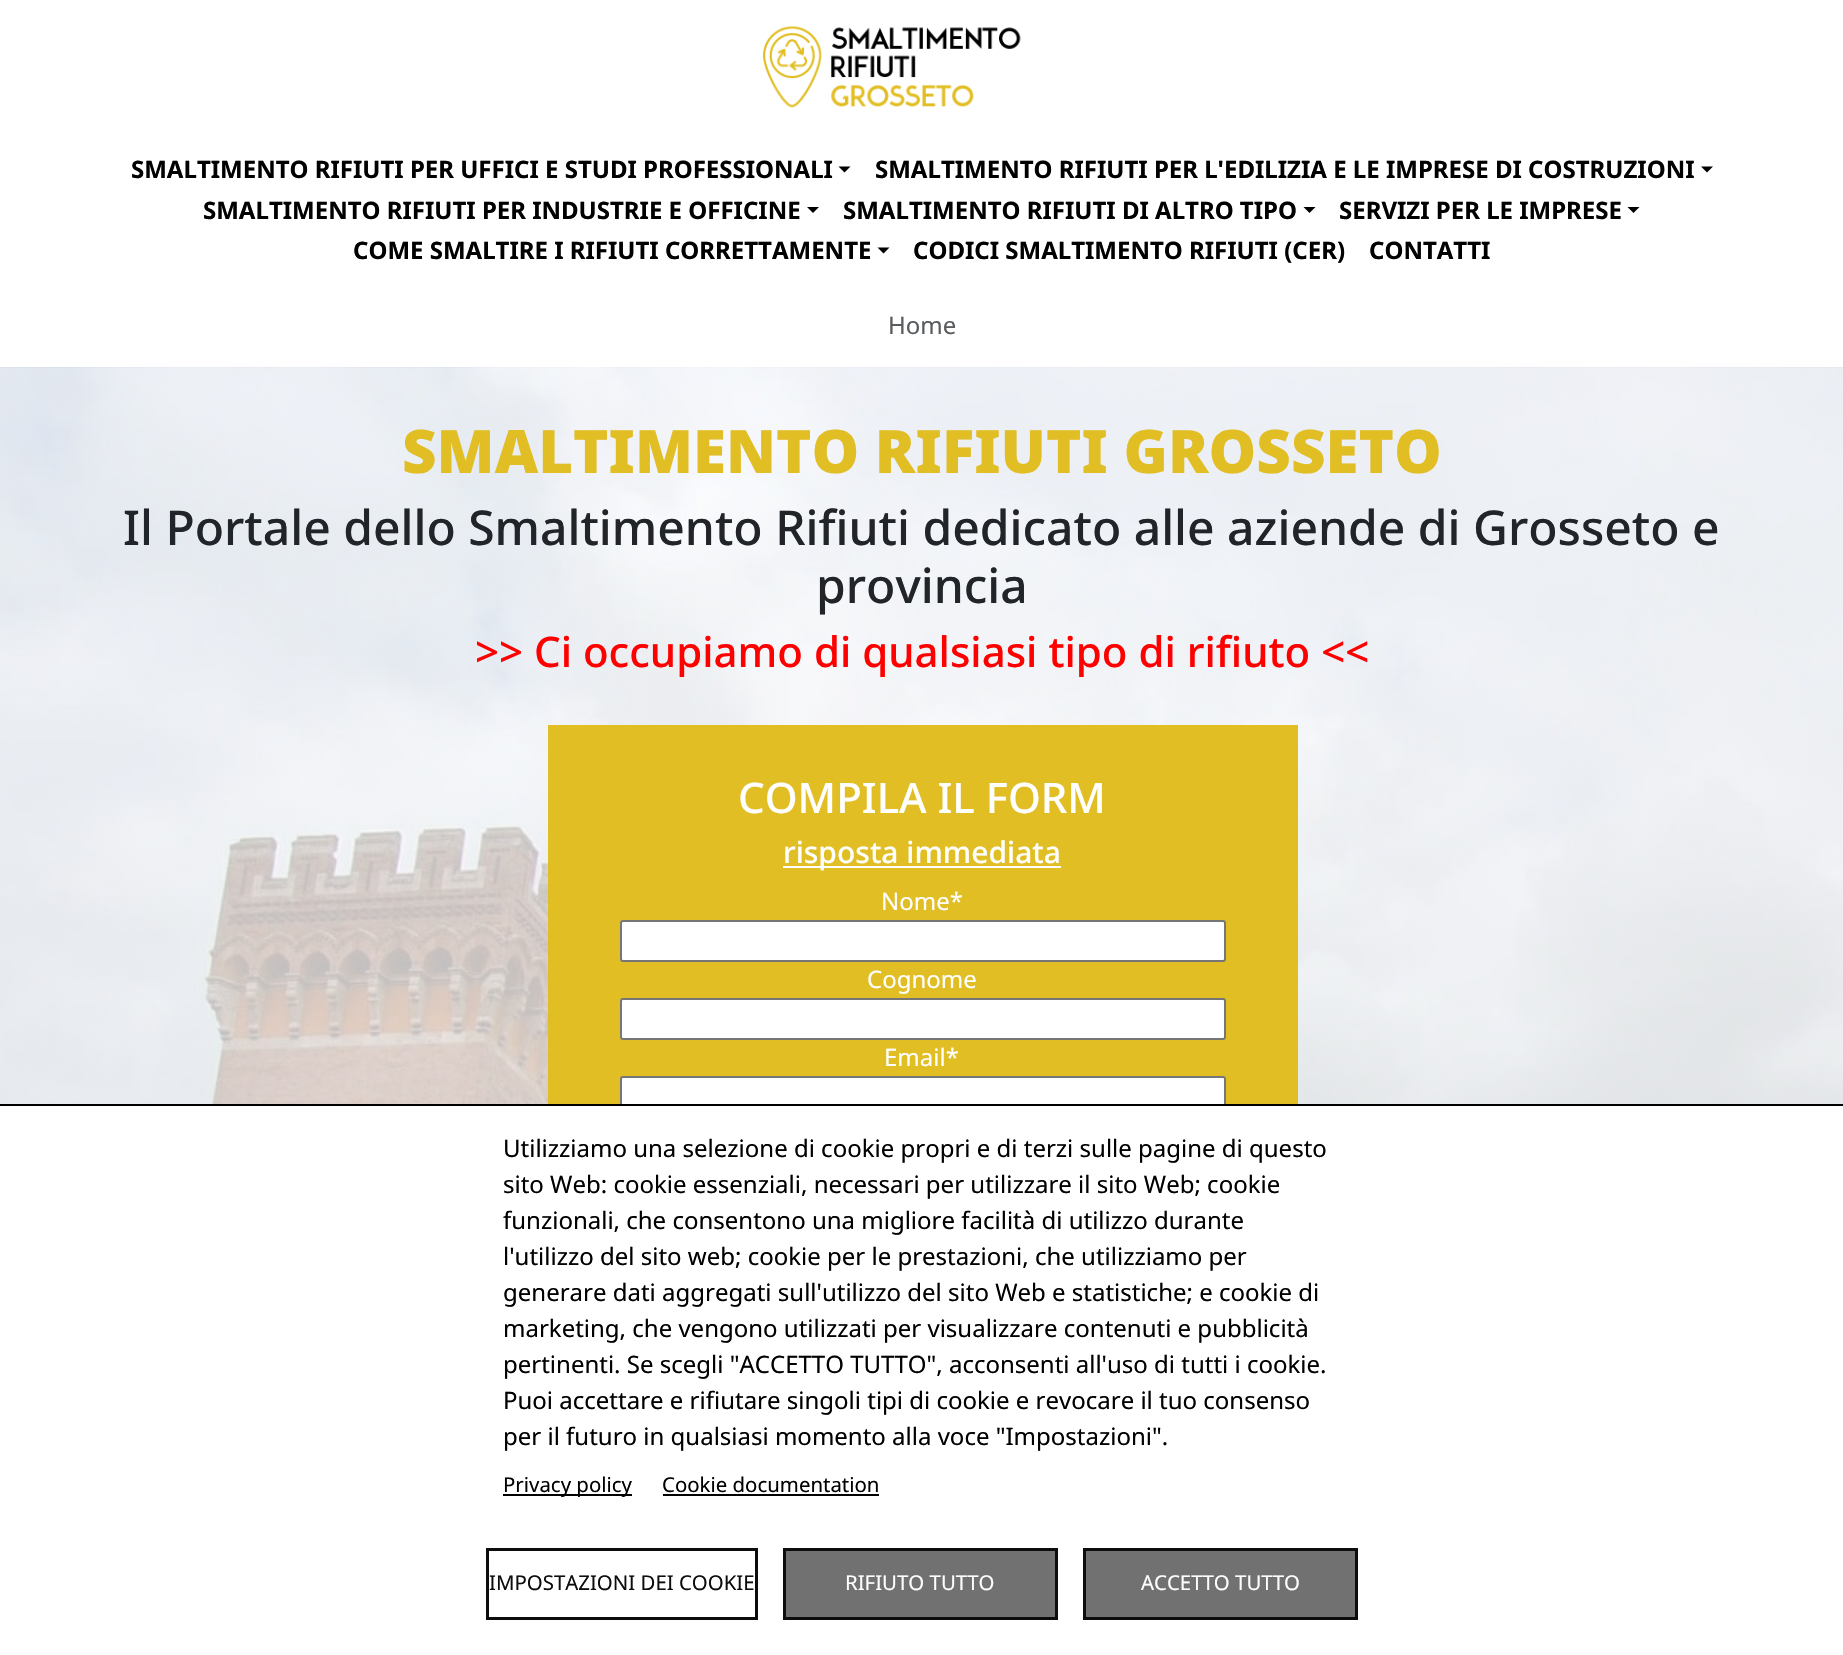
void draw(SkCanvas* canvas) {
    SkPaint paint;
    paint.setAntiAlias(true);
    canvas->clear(0xFFFFFFFF);
    canvas->drawImageRect(SkImages::DeferredFromEncodedData(SkData::MakeFromFileName("img1.png")), SkRect::MakeXYWH(763, 26, 258, 82), SkSamplingOptions());
    SkFont font1(fontMgr->matchFamilyStyle("Noto Sans", SkFontStyle::Bold()), 24);
    font1.setSubpixel(true);
    paint.setColor(0xFF000000);
    canvas->drawString("SMALTIMENTO RIFIUTI PER UFFICI E STUDI PROFESSIONALI", 131, 178, font1, paint);
    canvas->drawPath(SkPathBuilder().moveTo(838.5f, 166.5f).lineTo(850.5f, 166.5f).lineTo(844.5f, 172.5f).close().detach(), paint);
    canvas->drawString("SMALTIMENTO RIFIUTI PER L'EDILIZIA E LE IMPRESE DI COSTRUZIONI", 875, 178, font1, paint);
    canvas->drawPath(SkPathBuilder().moveTo(1701, 166.5f).lineTo(1713, 166.5f).lineTo(1707, 172.5f).close().detach(), paint);
    canvas->drawString("SMALTIMENTO RIFIUTI PER INDUSTRIE E OFFICINE", 203, 219, font1, paint);
    canvas->drawPath(SkPathBuilder().moveTo(807, 207).lineTo(819, 207).lineTo(813, 213).close().detach(), paint);
    canvas->drawString("SMALTIMENTO RIFIUTI DI ALTRO TIPO", 843, 219, font1, paint);
    canvas->drawPath(SkPathBuilder().moveTo(1303.5f, 207).lineTo(1315.5f, 207).lineTo(1309.5f, 213).close().detach(), paint);
    canvas->drawString("SERVIZI PER LE IMPRESE", 1339, 219, font1, paint);
    canvas->drawPath(SkPathBuilder().moveTo(1627.5f, 207).lineTo(1639.5f, 207).lineTo(1633.5f, 213).close().detach(), paint);
    canvas->drawString("COME SMALTIRE I RIFIUTI CORRETTAMENTE", 353, 259, font1, paint);
    canvas->drawPath(SkPathBuilder().moveTo(877.5f, 247.5f).lineTo(889.5f, 247.5f).lineTo(883.5f, 253.5f).close().detach(), paint);
    canvas->drawString("CODICI SMALTIMENTO RIFIUTI (CER)", 913, 259, font1, paint);
    canvas->drawString("CONTATTI", 1369, 259, font1, paint);
    SkFont font2(fontMgr->matchFamilyStyle("Noto Sans", SkFontStyle::Normal()), 24);
    font2.setSubpixel(true);
    paint.setColor(0xFF595C5F);
    canvas->drawString("Home", 888, 334, font2, paint);
    canvas->drawImageRect(SkImages::DeferredFromEncodedData(SkData::MakeFromFileName("img2.png")), SkRect::MakeXYWH(0, 367, 1843, 737), SkSamplingOptions());
    SkFont font3(fontMgr->matchFamilyStyle("Noto Sans", SkFontStyle(900, SkFontStyle::kNormal_Width, SkFontStyle::kUpright_Slant)), 60);
    font3.setSubpixel(true);
    paint.setColor(0xFFE2BE25);
    canvas->drawString("SMALTIMENTO RIFIUTI GROSSETO", 402, 473, font3, paint);
    SkFont font4(fontMgr->matchFamilyStyle("Noto Sans", SkFontStyle(500, SkFontStyle::kNormal_Width, SkFontStyle::kUpright_Slant)), 48);
    font4.setSubpixel(true);
    paint.setColor(0xFF212529);
    canvas->drawString("Il Portale dello Smaltimento Rifiuti dedicato alle aziende di Grosseto e", 123, 545, font4, paint);
    canvas->drawString("provincia", 816, 603, font4, paint);
    SkFont font5(fontMgr->matchFamilyStyle("Noto Sans", SkFontStyle(500, SkFontStyle::kNormal_Width, SkFontStyle::kUpright_Slant)), 42);
    font5.setSubpixel(true);
    paint.setColor(0xFFFF0000);
    canvas->drawString(">> Ci occupiamo di qualsiasi tipo di rifiuto <<", 475, 667, font5, paint);
    paint.setColor(0xFFE2BE25);
    canvas->drawRect(SkRect::MakeXYWH(548, 725, 750, 379), paint);
    paint.setColor(0xFFFFFFFF);
    canvas->drawString("COMPILA IL FORM", 738, 813, font5, paint);
    canvas->drawRect(SkRect::MakeXYWH(783, 866, 278, 2), paint);
    SkFont font6(fontMgr->matchFamilyStyle("Noto Sans", SkFontStyle(500, SkFontStyle::kNormal_Width, SkFontStyle::kUpright_Slant)), 30);
    font6.setSubpixel(true);
    canvas->drawString("risposta immediata", 783, 863, font6, paint);
    canvas->drawString("Nome*", 881, 910, font2, paint);
    canvas->drawRoundRect(SkRect::MakeXYWH(621, 921, 604, 40), 2, 2, paint);
    paint.setStyle(SkPaint::kStroke_Style);
    paint.setStrokeWidth(2);
    paint.setColor(0xFF767676);
    canvas->drawRoundRect(SkRect::MakeXYWH(621, 921, 604, 40), 2, 2, paint);
    paint.setStyle(SkPaint::kFill_Style);
    paint.setColor(0xFFFFFFFF);
    canvas->drawString("Cognome", 867, 988, font2, paint);
    canvas->drawRoundRect(SkRect::MakeXYWH(621, 999, 604, 40), 2, 2, paint);
    paint.setStyle(SkPaint::kStroke_Style);
    paint.setColor(0xFF767676);
    canvas->drawRoundRect(SkRect::MakeXYWH(621, 999, 604, 40), 2, 2, paint);
    paint.setStyle(SkPaint::kFill_Style);
    paint.setColor(0xFFFFFFFF);
    canvas->drawString("Email*", 884, 1066, font2, paint);
    canvas->drawRoundRect(SkRect::MakeXYWH(621, 1077, 604, 40), 2, 2, paint);
    paint.setStyle(SkPaint::kStroke_Style);
    paint.setColor(0xFF767676);
    canvas->drawRoundRect(SkRect::MakeXYWH(621, 1077, 604, 40), 2, 2, paint);
    paint.setStyle(SkPaint::kFill_Style);
    paint.setColor(0xFFFFFFFF);
    canvas->drawRect(SkRect::MakeXYWH(620, 1106, 606, 12), paint);
    paint.setColor(0xFF000000);
    canvas->drawRect(SkRect::MakeXYWH(0, 1104, 1843, 2), paint);
    canvas->drawString("Utilizziamo una selezione di cookie propri e di terzi sulle pagine di questo", 503, 1157, font2, paint);
    canvas->drawString("sito Web: cookie essenziali, necessari per utilizzare il sito Web; cookie", 503, 1193, font2, paint);
    canvas->drawString("funzionali, che consentono una migliore facilità di utilizzo durante", 503, 1229, font2, paint);
    canvas->drawString("l'utilizzo del sito web; cookie per le prestazioni, che utilizziamo per", 503, 1265, font2, paint);
    canvas->drawString("generare dati aggregati sull'utilizzo del sito Web e statistiche; e cookie di", 503, 1301, font2, paint);
    canvas->drawString("marketing, che vengono utilizzati per visualizzare contenuti e pubblicità", 503, 1337, font2, paint);
    canvas->drawString("pertinenti. Se scegli \"ACCETTO TUTTO\", acconsenti all'uso di tutti i cookie.", 503, 1373, font2, paint);
    canvas->drawString("Puoi accettare e rifiutare singoli tipi di cookie e revocare il tuo consenso", 503, 1409, font2, paint);
    canvas->drawString("per il futuro in qualsiasi momento alla voce \"Impostazioni\".", 503, 1445, font2, paint);
    canvas->drawRect(SkRect::MakeXYWH(503, 1494, 129, 2), paint);
    SkFont font7(fontMgr->matchFamilyStyle("Noto Sans", SkFontStyle::Normal()), 20.4f);
    font7.setSubpixel(true);
    canvas->drawString("Privacy policy", 503, 1492, font7, paint);
    canvas->drawString("Cookie documentation", 662, 1492, font7, paint);
    canvas->drawRect(SkRect::MakeXYWH(663, 1494, 216, 2), paint);
    paint.setStyle(SkPaint::kStroke_Style);
    paint.setStrokeWidth(3);
    paint.setColor(0xFF0D0D0D);
    canvas->drawRect(SkRect::MakeXYWH(487.5f, 1549.5f, 269, 69), paint);
    paint.setStyle(SkPaint::kFill_Style);
    canvas->drawString("IMPOSTAZIONI DEI COOKIE", 489, 1590, font7, paint);
    paint.setColor(0xFF717171);
    canvas->drawRect(SkRect::MakeXYWH(784.5f, 1549.5f, 272, 69), paint);
    paint.setStyle(SkPaint::kStroke_Style);
    paint.setColor(0xFF0D0D0D);
    canvas->drawRect(SkRect::MakeXYWH(784.5f, 1549.5f, 272, 69), paint);
    paint.setStyle(SkPaint::kFill_Style);
    paint.setColor(0xFFFFFFFF);
    canvas->drawString("RIFIUTO TUTTO", 845, 1590, font7, paint);
    paint.setColor(0xFF717171);
    canvas->drawRect(SkRect::MakeXYWH(1084.5f, 1549.5f, 272, 69), paint);
    paint.setStyle(SkPaint::kStroke_Style);
    paint.setColor(0xFF0D0D0D);
    canvas->drawRect(SkRect::MakeXYWH(1084.5f, 1549.5f, 272, 69), paint);
    paint.setStyle(SkPaint::kFill_Style);
    paint.setColor(0xFFFFFFFF);
    canvas->drawString("ACCETTO TUTTO", 1141, 1590, font7, paint);
}
